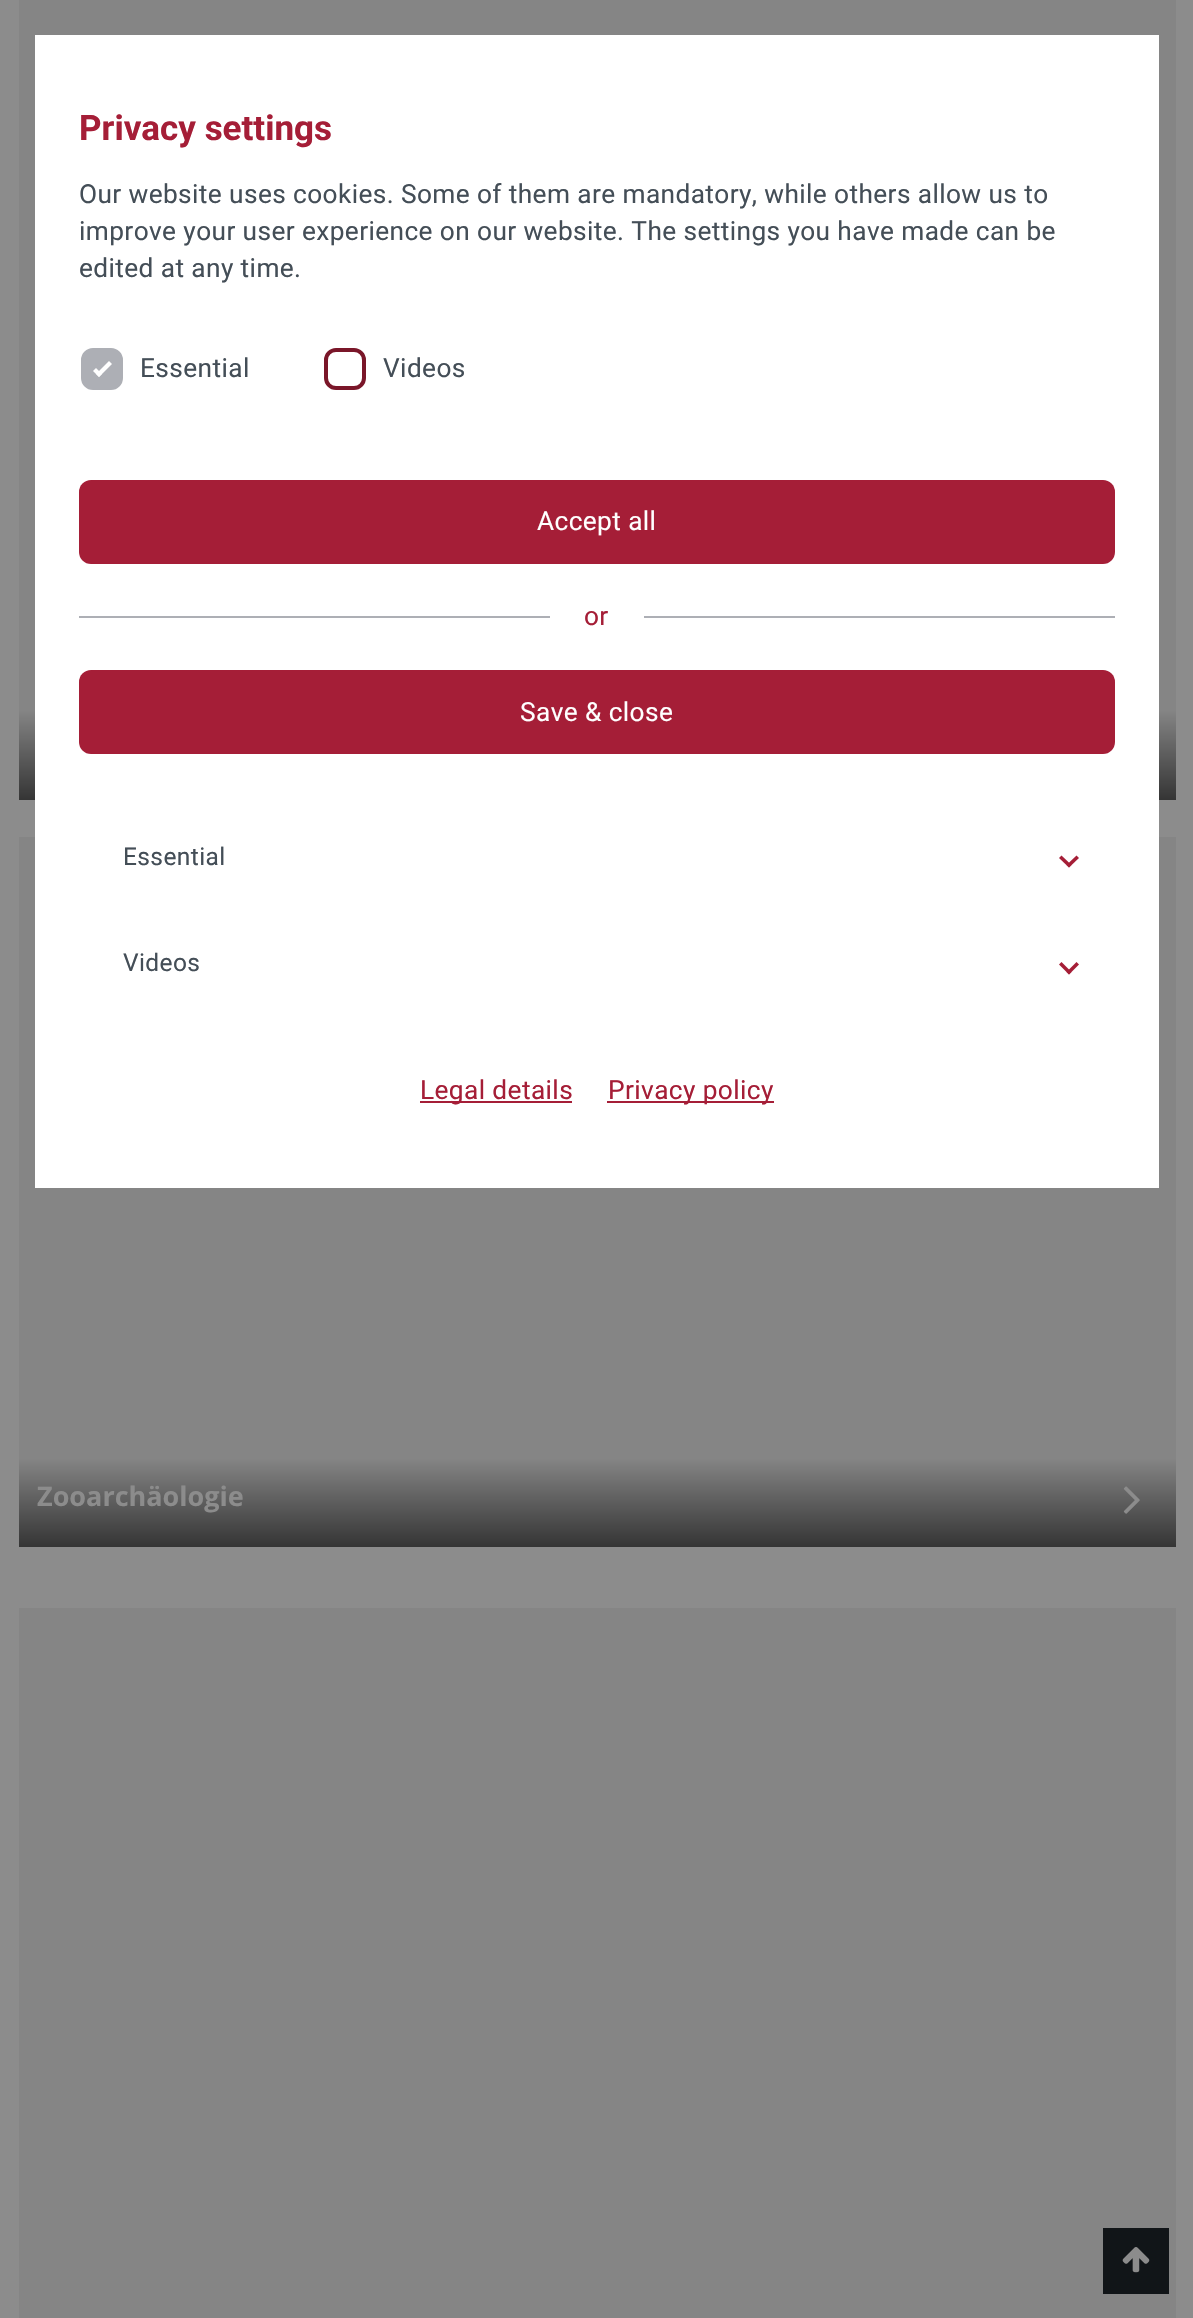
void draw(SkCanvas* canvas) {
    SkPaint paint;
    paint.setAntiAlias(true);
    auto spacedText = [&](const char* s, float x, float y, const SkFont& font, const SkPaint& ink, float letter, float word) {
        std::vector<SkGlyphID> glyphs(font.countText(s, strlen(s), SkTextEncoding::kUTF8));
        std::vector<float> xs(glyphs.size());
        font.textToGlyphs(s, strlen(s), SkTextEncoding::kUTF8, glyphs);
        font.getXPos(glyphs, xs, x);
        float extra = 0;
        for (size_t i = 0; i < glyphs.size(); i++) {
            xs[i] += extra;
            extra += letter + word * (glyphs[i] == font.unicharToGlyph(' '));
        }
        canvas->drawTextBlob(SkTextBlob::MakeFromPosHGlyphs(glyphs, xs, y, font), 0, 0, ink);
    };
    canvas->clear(0xFF8C8C8C);
    paint.setColor(0xFF858585);
    canvas->drawRect(SkRect::MakeXYWH(19, 0, 1157, 711), paint);
    {
        const SkColor colors[] = {0xFF858585, 0xFF353535};
        const float stops[] = {0, 1};
        const SkPoint ends[] = {{598, 710}, {598, 800}};
        paint.setShader(SkGradientShader::MakeLinear(ends, colors, stops, 2, SkTileMode::kClamp));
        paint.setAlpha(255);
    }
    canvas->drawRect(SkRect::MakeXYWH(19, 711, 1157, 89), paint);
    paint.setShader(nullptr);
    paint.setColor(0xFF858585);
    canvas->drawRect(SkRect::MakeXYWH(19, 837, 1157, 621), paint);
    paint.setColor(0xFFFFFFFF);
    canvas->drawRect(SkRect::MakeXYWH(35, 35, 1124, 1153), paint);
    SkFont font1(fontMgr->matchFamilyStyle("Roboto", SkFontStyle::Bold()), 35);
    font1.setSubpixel(true);
    paint.setColor(0xFFA51E37);
    canvas->drawString("Privacy settings", 79, 140, font1, paint);
    SkFont font2(fontMgr->matchFamilyStyle("Roboto", SkFontStyle::Normal()), 26.25f);
    font2.setSubpixel(true);
    paint.setColor(0xFF444E57);
    spacedText("Our website uses cookies. Some of them are mandatory, while others allow us to", 79, 203, font2, paint, 0.4f, 0);
    spacedText("improve your user experience on our website. The settings you have made can be", 79, 240, font2, paint, 0.4f, 0);
    spacedText("edited at any time.", 79, 277, font2, paint, 0.4f, 0);
    paint.setColor(0xFFADAFB5);
    canvas->drawRoundRect(SkRect::MakeXYWH(83, 350, 38, 38), 10, 10, paint);
    paint.setStyle(SkPaint::kStroke_Style);
    paint.setStrokeWidth(4);
    canvas->drawRoundRect(SkRect::MakeXYWH(83, 350, 38, 38), 10, 10, paint);
    paint.setStyle(SkPaint::kFill_Style);
    paint.setColor(0xFF444E57);
    spacedText("Essential", 140, 377, font2, paint, 0.4f, 0);
    paint.setColor(0xFFFFFFFF);
    canvas->drawPath(SkPathBuilder().moveTo(96, 374).lineTo(109, 361).lineTo(112, 364).lineTo(99, 377).close().detach(), paint);
    canvas->drawPath(SkPathBuilder().moveTo(93, 371).lineTo(96, 368).lineTo(102, 374).lineTo(99, 377).close().detach(), paint);
    paint.setStyle(SkPaint::kStroke_Style);
    paint.setColor(0xFF7A1629);
    canvas->drawRoundRect(SkRect::MakeXYWH(326, 350, 38, 38), 10, 10, paint);
    paint.setStyle(SkPaint::kFill_Style);
    paint.setColor(0xFF444E57);
    spacedText("Videos", 383, 377, font2, paint, 0.4f, 0);
    paint.setColor(0xFFA51E37);
    canvas->drawRoundRect(SkRect::MakeXYWH(79, 480, 1036, 84), 12, 12, paint);
    paint.setColor(0xFFFFFFFF);
    spacedText("Accept all", 537, 530, font2, paint, 0.4f, 0);
    paint.setColor(0xFFADAFB5);
    canvas->drawRect(SkRect::MakeXYWH(79, 616, 471, 2), paint);
    paint.setColor(0xFFA51E37);
    spacedText("or", 584, 625, font2, paint, 0.4f, 0);
    paint.setColor(0xFFADAFB5);
    canvas->drawRect(SkRect::MakeXYWH(644, 616, 471, 2), paint);
    paint.setColor(0xFFA51E37);
    canvas->drawRoundRect(SkRect::MakeXYWH(79, 670, 1036, 84), 12, 12, paint);
    paint.setColor(0xFFFFFFFF);
    spacedText("Save & close", 520, 721, font2, paint, 0.4f, 0);
    SkFont font3(fontMgr->matchFamilyStyle("Roboto", SkFontStyle::Normal()), 24.5f);
    font3.setSubpixel(true);
    paint.setColor(0xFF444E57);
    spacedText("Essential", 123, 865, font3, paint, 0.4f, 0);
    paint.setColor(0xFFA51E37);
    canvas->drawPath(SkPathBuilder().moveTo(1076.5f, 855.5f).lineTo(1079, 858).lineTo(1069, 867.5f).lineTo(1066.5f, 865).close().detach(), paint);
    canvas->drawPath(SkPathBuilder().moveTo(1061.5f, 855.5f).lineTo(1071.5f, 865).lineTo(1069, 867.5f).lineTo(1059, 858).close().detach(), paint);
    paint.setColor(0xFF444E57);
    spacedText("Videos", 123, 971, font3, paint, 0.4f, 0);
    paint.setColor(0xFFA51E37);
    canvas->drawPath(SkPathBuilder().moveTo(1076.5f, 962).lineTo(1079, 964.5f).lineTo(1069, 974.5f).lineTo(1066.5f, 972).close().detach(), paint);
    canvas->drawPath(SkPathBuilder().moveTo(1061.5f, 962).lineTo(1071.5f, 972).lineTo(1069, 974.5f).lineTo(1059, 964.5f).close().detach(), paint);
    canvas->drawRect(SkRect::MakeXYWH(420, 1101, 152, 2), paint);
    spacedText("Legal details", 420, 1099, font2, paint, 0.4f, 0);
    canvas->drawRect(SkRect::MakeXYWH(607, 1101, 167, 2), paint);
    spacedText("Privacy policy", 608, 1099, font2, paint, 0.4f, 0);
    {
        const SkColor colors[] = {0xFF858585, 0xFF353535};
        const float stops[] = {0, 1};
        const SkPoint ends[] = {{598, 1458}, {598, 1547}};
        paint.setShader(SkGradientShader::MakeLinear(ends, colors, stops, 2, SkTileMode::kClamp));
        paint.setAlpha(255);
    }
    canvas->drawRect(SkRect::MakeXYWH(19, 1458, 1157, 89), paint);
    SkFont font4(fontMgr->matchFamilyStyle("Open Sans", SkFontStyle::Bold()), 27);
    font4.setSubpixel(true);
    paint.setShader(nullptr);
    paint.setColor(0xFF8C8C8C);
    canvas->drawString("Zooarchäologie", 37, 1506, font4, paint);
    canvas->drawImageRect(SkImages::DeferredFromEncodedData(SkData::MakeFromFileName("img1.png")), SkRect::MakeXYWH(1123, 1486, 17, 28), SkSamplingOptions());
    paint.setColor(0xFF858585);
    canvas->drawRect(SkRect::MakeXYWH(19, 1608, 1157, 710), paint);
    paint.setColor(0xFF111518);
    canvas->drawRect(SkRect::MakeXYWH(1103, 2228, 66, 66), paint);
    canvas->drawImageRect(SkImages::DeferredFromEncodedData(SkData::MakeFromFileName("img2.png")), SkRect::MakeXYWH(1122, 2247, 28, 26), SkSamplingOptions());
}
